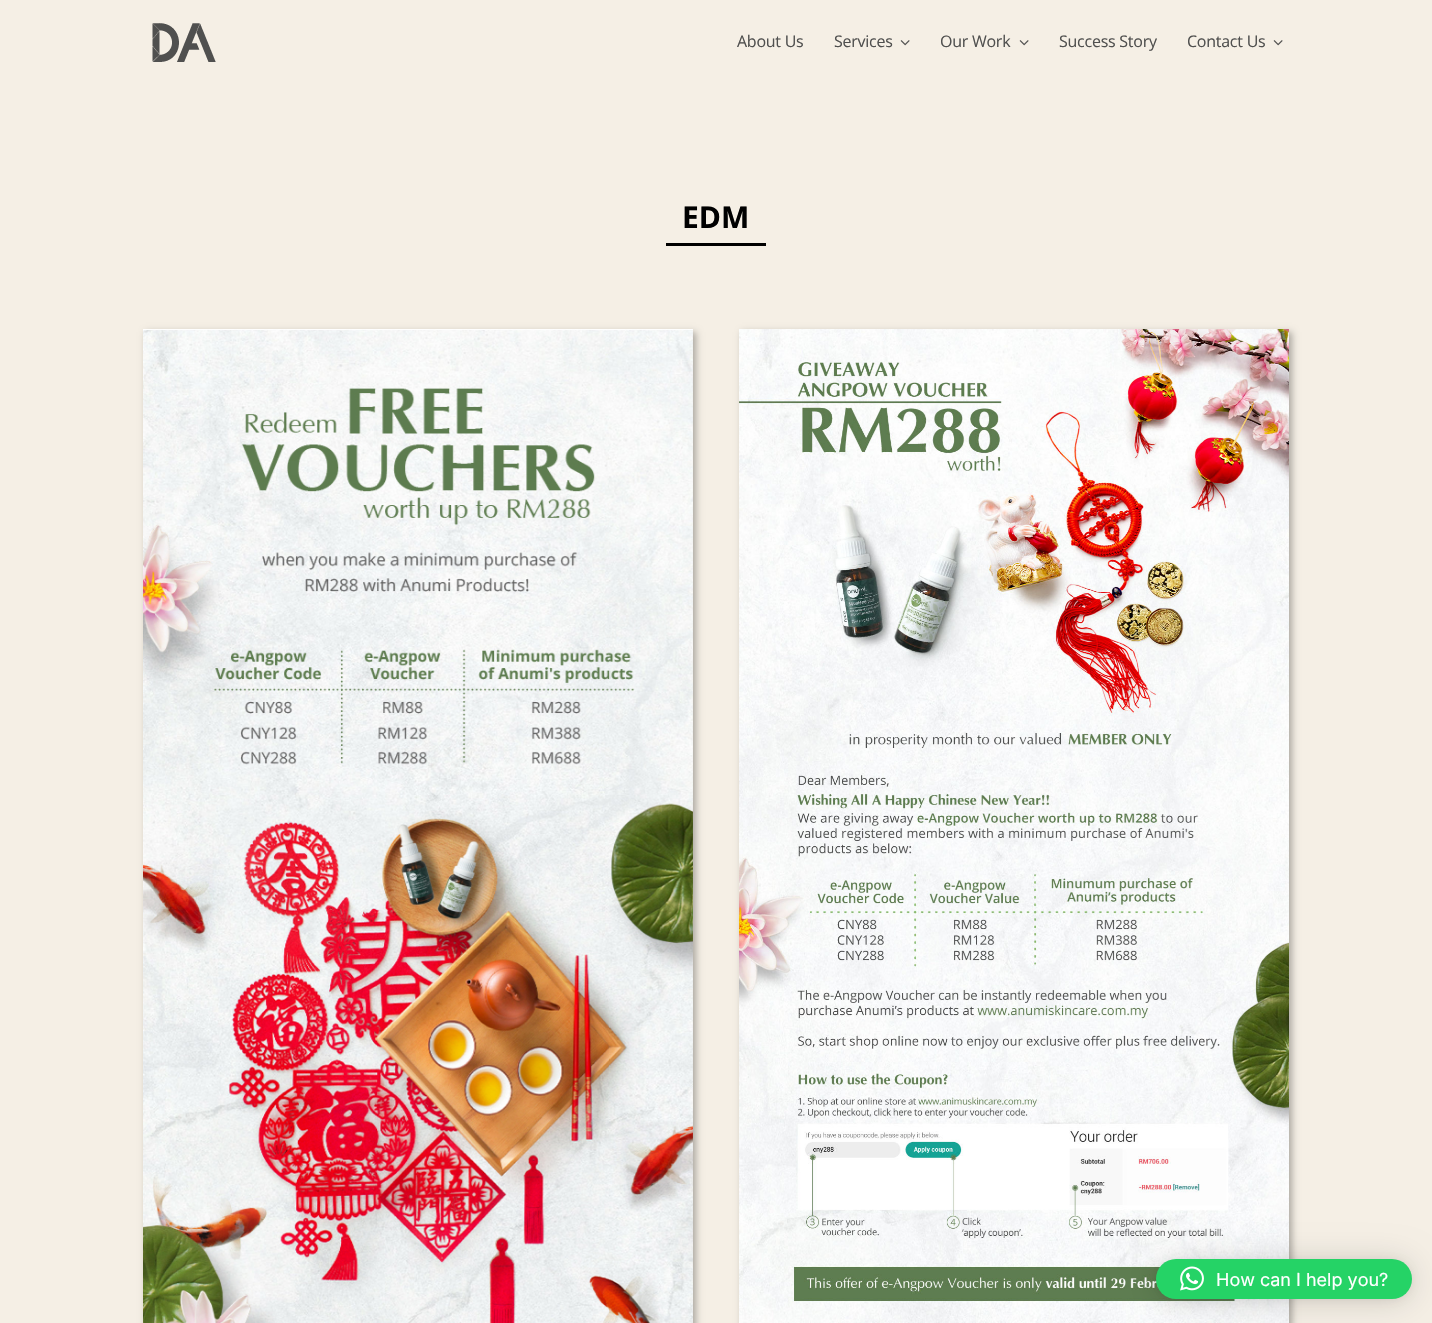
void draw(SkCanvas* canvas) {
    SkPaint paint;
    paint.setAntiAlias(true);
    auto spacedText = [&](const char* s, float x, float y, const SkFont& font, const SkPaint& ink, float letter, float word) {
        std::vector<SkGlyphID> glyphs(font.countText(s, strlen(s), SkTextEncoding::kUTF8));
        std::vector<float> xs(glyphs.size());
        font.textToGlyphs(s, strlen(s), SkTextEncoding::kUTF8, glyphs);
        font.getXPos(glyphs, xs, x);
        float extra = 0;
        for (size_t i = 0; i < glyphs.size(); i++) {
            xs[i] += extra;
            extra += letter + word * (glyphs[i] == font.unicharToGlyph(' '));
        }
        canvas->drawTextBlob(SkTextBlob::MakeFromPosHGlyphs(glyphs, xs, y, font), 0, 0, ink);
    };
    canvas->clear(0xFFF5EFE5);
    canvas->drawImageRect(SkImages::DeferredFromEncodedData(SkData::MakeFromFileName("img1.png")), SkRect::MakeXYWH(152, 23, 64, 39), SkSamplingOptions());
    SkFont font1(fontMgr->matchFamilyStyle("Open Sans", SkFontStyle::Normal()), 16);
    font1.setSubpixel(true);
    paint.setColor(0xFF50504F);
    spacedText("About Us", 737, 47, font1, paint, -0.25f, 0);
    spacedText("Services", 834, 47, font1, paint, -0.25f, 0);
    canvas->drawImageRect(SkImages::DeferredFromEncodedData(SkData::MakeFromFileName("img2.png")), SkRect::MakeXYWH(900, 40, 10, 6), SkSamplingOptions());
    spacedText("Our Work", 940, 47, font1, paint, -0.25f, 0);
    canvas->drawImageRect(SkImages::DeferredFromEncodedData(SkData::MakeFromFileName("img2.png")), SkRect::MakeXYWH(1019, 40, 10, 6), SkSamplingOptions());
    spacedText("Success Story", 1059, 47, font1, paint, -0.25f, 0);
    spacedText("Contact Us", 1187, 47, font1, paint, -0.25f, 0);
    canvas->drawImageRect(SkImages::DeferredFromEncodedData(SkData::MakeFromFileName("img2.png")), SkRect::MakeXYWH(1273, 40, 10, 6), SkSamplingOptions());
    SkFont font2(fontMgr->matchFamilyStyle("Open Sans", SkFontStyle::Bold()), 30);
    font2.setSubpixel(true);
    paint.setColor(0xFF000000);
    canvas->drawString("EDM", 682, 228, font2, paint);
    canvas->drawRect(SkRect::MakeXYWH(666, 243, 100, 3), paint);
    paint.setColor(0x4D000000);
    paint.setMaskFilter(SkMaskFilter::MakeBlur(kNormal_SkBlurStyle, 3.5f));
    canvas->drawRect(SkRect::MakeXYWH(146, 332, 550, 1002), paint);
    paint.setMaskFilter(nullptr);
    canvas->drawImageRect(SkImages::DeferredFromEncodedData(SkData::MakeFromFileName("img3.png")), SkRect::MakeXYWH(143, 329, 550, 994), SkSamplingOptions());
    paint.setMaskFilter(SkMaskFilter::MakeBlur(kNormal_SkBlurStyle, 3.5f));
    canvas->drawRect(SkRect::MakeXYWH(742, 332, 550, 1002), paint);
    paint.setMaskFilter(nullptr);
    canvas->drawImageRect(SkImages::DeferredFromEncodedData(SkData::MakeFromFileName("img4.png")), SkRect::MakeXYWH(739, 329, 550, 994), SkSamplingOptions());
    paint.setColor(0x29000000);
    paint.setMaskFilter(SkMaskFilter::MakeBlur(kNormal_SkBlurStyle, 16));
    canvas->drawRoundRect(SkRect::MakeXYWH(1156, 1261, 256, 40), 20, 20, paint);
    paint.setMaskFilter(nullptr);
    paint.setColor(0x0F000000);
    paint.setMaskFilter(SkMaskFilter::MakeBlur(kNormal_SkBlurStyle, 3));
    canvas->drawRoundRect(SkRect::MakeXYWH(1156, 1260, 256, 40), 20, 20, paint);
    paint.setMaskFilter(nullptr);
    paint.setColor(0xFF25D366);
    canvas->drawRoundRect(SkRect::MakeXYWH(1156, 1259, 256, 40), 20, 20, paint);
    canvas->drawImageRect(SkImages::DeferredFromEncodedData(SkData::MakeFromFileName("img5.png")), SkRect::MakeXYWH(1180, 1266, 24, 25), SkSamplingOptions());
    SkFont font3(fontMgr->matchFamilyStyle("Inter", SkFontStyle::Normal()), 18);
    font3.setSubpixel(true);
    paint.setColor(0xFFFFFFFF);
    canvas->drawString("How can I help you?", 1216, 1286, font3, paint);
}
